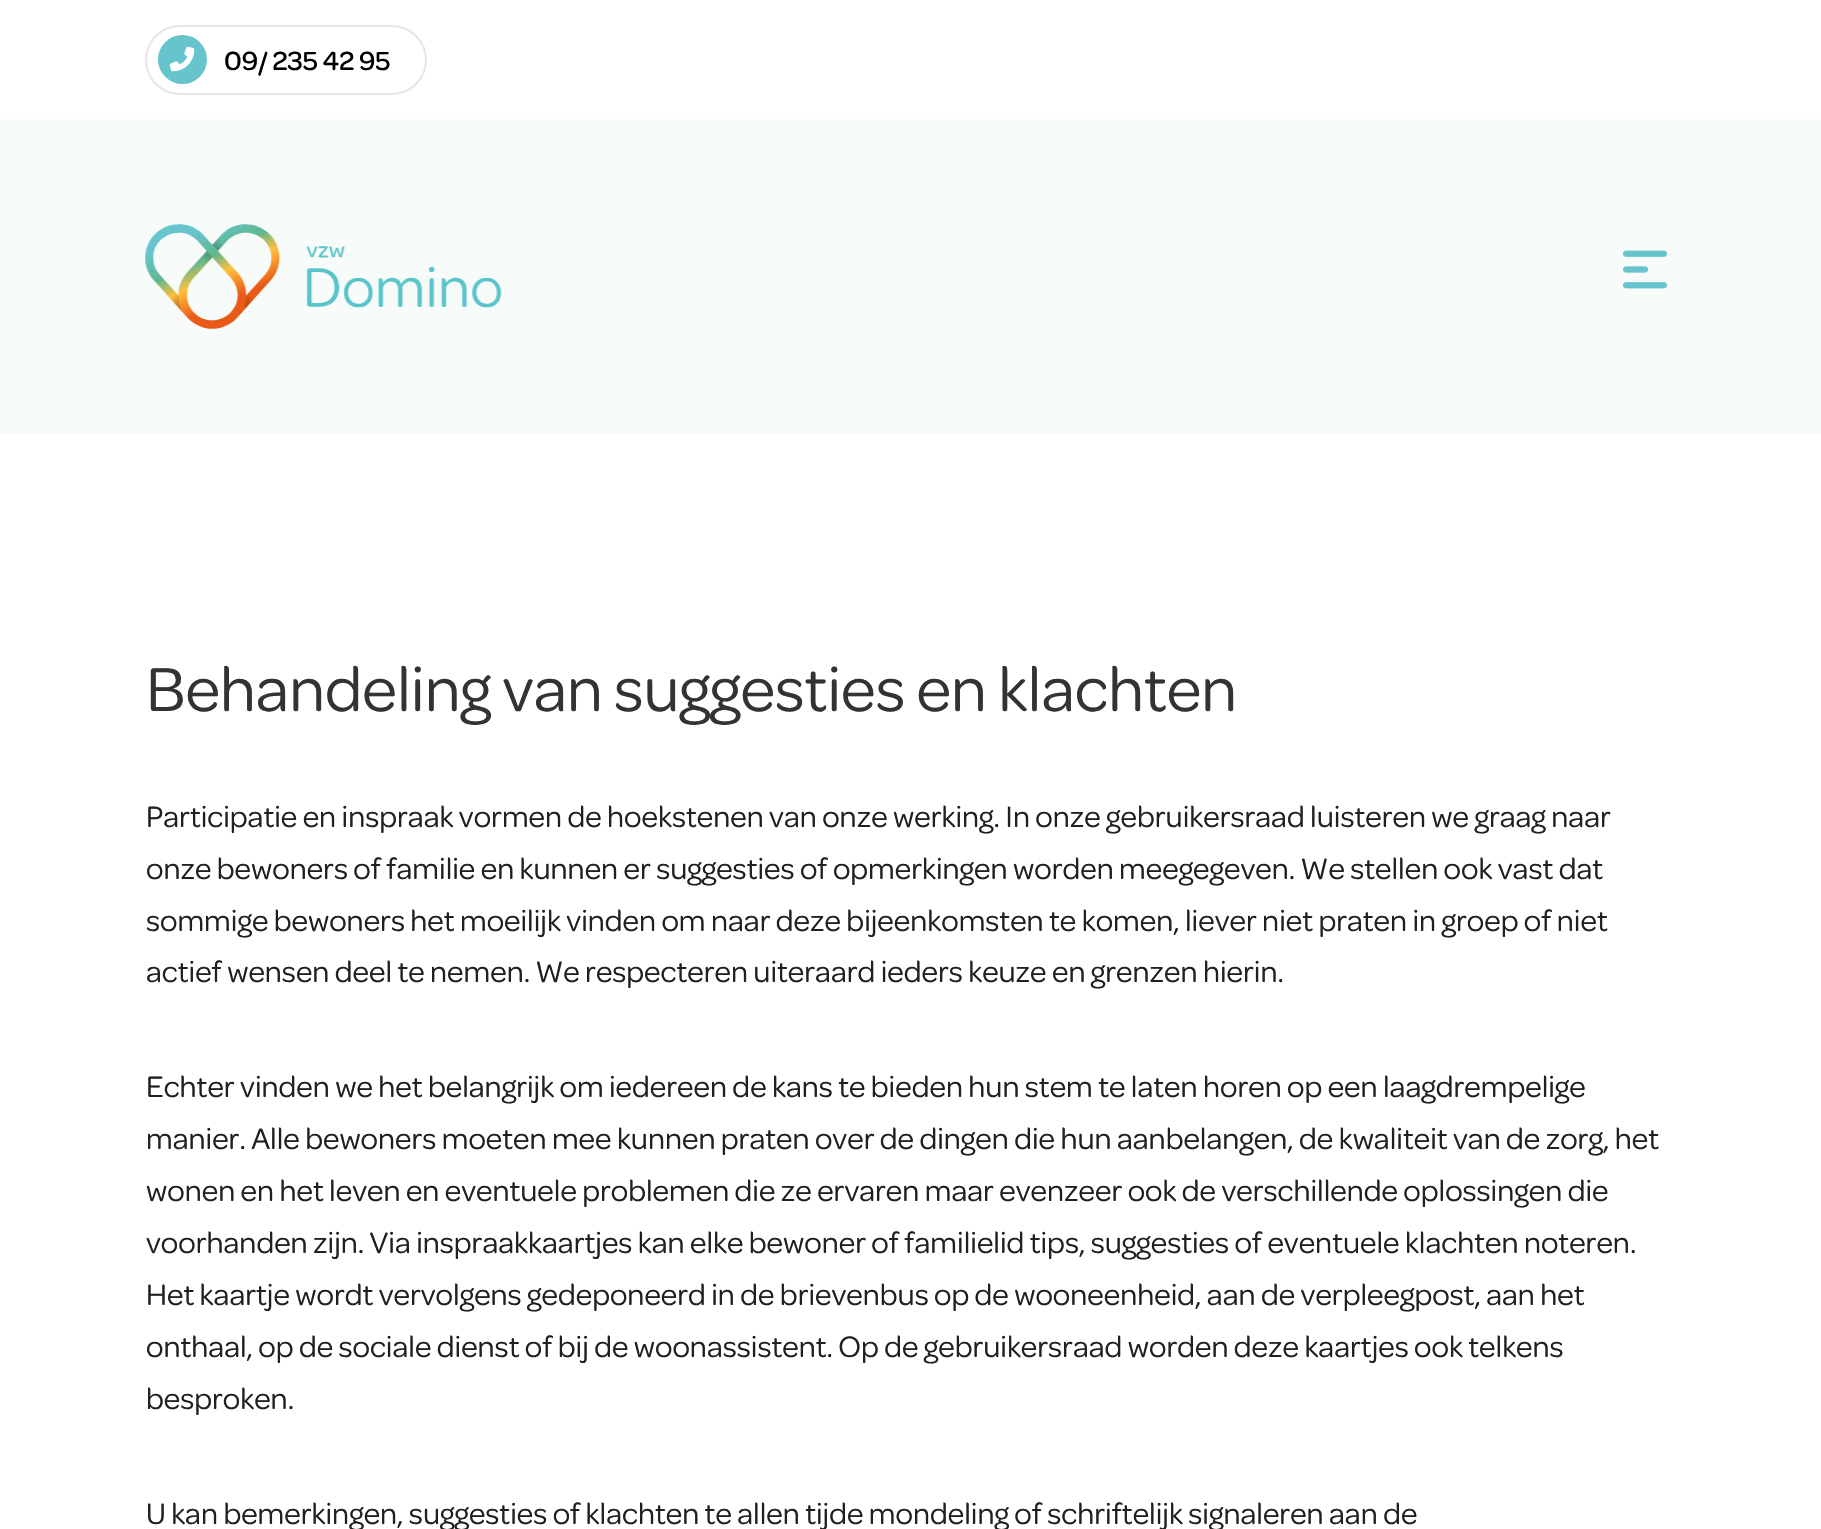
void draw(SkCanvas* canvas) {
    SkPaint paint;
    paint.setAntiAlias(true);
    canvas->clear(0xFFFFFFFF);
    paint.setStyle(SkPaint::kStroke_Style);
    paint.setStrokeWidth(2);
    paint.setColor(0xFFE6E6E6);
    canvas->drawRoundRect(SkRect::MakeXYWH(146, 26, 280, 68), 34, 34, paint);
    paint.setStyle(SkPaint::kFill_Style);
    paint.setColor(0xFF67C3CC);
    canvas->drawCircle(182.5f, 59.5f, 24.5f, paint);
    canvas->drawImageRect(SkImages::DeferredFromEncodedData(SkData::MakeFromFileName("img1.png")), SkRect::MakeXYWH(169, 46, 26, 26), SkSamplingOptions());
    SkFont font1(fontMgr->matchFamilyStyle("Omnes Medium", SkFontStyle(500, SkFontStyle::kNormal_Width, SkFontStyle::kUpright_Slant)), 28);
    font1.setSubpixel(true);
    paint.setColor(0xFF000000);
    canvas->drawString("09/ 235 42 95", 224, 70, font1, paint);
    paint.setColor(0xFFF7FBF9);
    canvas->drawRect(SkRect::MakeXYWH(0, 119, 1821, 315), paint);
    canvas->drawImageRect(SkImages::DeferredFromEncodedData(SkData::MakeFromFileName("img2.png")), SkRect::MakeXYWH(145, 224, 357, 105), SkSamplingOptions());
    canvas->drawImageRect(SkImages::DeferredFromEncodedData(SkData::MakeFromFileName("img3.png")), SkRect::MakeXYWH(1623, 250, 44, 39), SkSamplingOptions());
    SkFont font2(fontMgr->matchFamilyStyle("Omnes", SkFontStyle::Normal()), 66.25f);
    font2.setSubpixel(true);
    paint.setColor(0xFF333333);
    canvas->drawString("Behandeling van suggesties en klachten", 146, 711, font2, paint);
    SkFont font3(fontMgr->matchFamilyStyle("Omnes", SkFontStyle::Normal()), 31.5f);
    font3.setSubpixel(true);
    paint.setColor(0xFF202020);
    canvas->drawString("Participatie en inspraak vormen de hoekstenen van onze werking. In onze gebruikersraad luisteren we graag naar", 146, 827, font3, paint);
    canvas->drawString("onze bewoners of familie en kunnen er suggesties of opmerkingen worden meegegeven. We stellen ook vast dat", 146, 879, font3, paint);
    canvas->drawString("sommige bewoners het moeilijk vinden om naar deze bijeenkomsten te komen, liever niet praten in groep of niet", 146, 931, font3, paint);
    canvas->drawString("actief wensen deel te nemen. We respecteren uiteraard ieders keuze en grenzen hierin.", 146, 982, font3, paint);
    canvas->drawString("Echter vinden we het belangrijk om iedereen de kans te bieden hun stem te laten horen op een laagdrempelige", 146, 1097, font3, paint);
    canvas->drawString("manier. Alle bewoners moeten mee kunnen praten over de dingen die hun aanbelangen, de kwaliteit van de zorg, het", 146, 1149, font3, paint);
    canvas->drawString("wonen en het leven en eventuele problemen die ze ervaren maar evenzeer ook de verschillende oplossingen die", 146, 1201, font3, paint);
    canvas->drawString("voorhanden zijn. Via inspraakkaartjes kan elke bewoner of familielid tips, suggesties of eventuele klachten noteren.", 146, 1253, font3, paint);
    canvas->drawString("Het kaartje wordt vervolgens gedeponeerd in de brievenbus op de wooneenheid, aan de verpleegpost, aan het", 146, 1305, font3, paint);
    canvas->drawString("onthaal, op de sociale dienst of bij de woonassistent. Op de gebruikersraad worden deze kaartjes ook telkens", 146, 1357, font3, paint);
    canvas->drawString("besproken.", 146, 1409, font3, paint);
    canvas->drawString("U kan bemerkingen, suggesties of klachten te allen tijde mondeling of schriftelijk signaleren aan de", 146, 1524, font3, paint);
}
